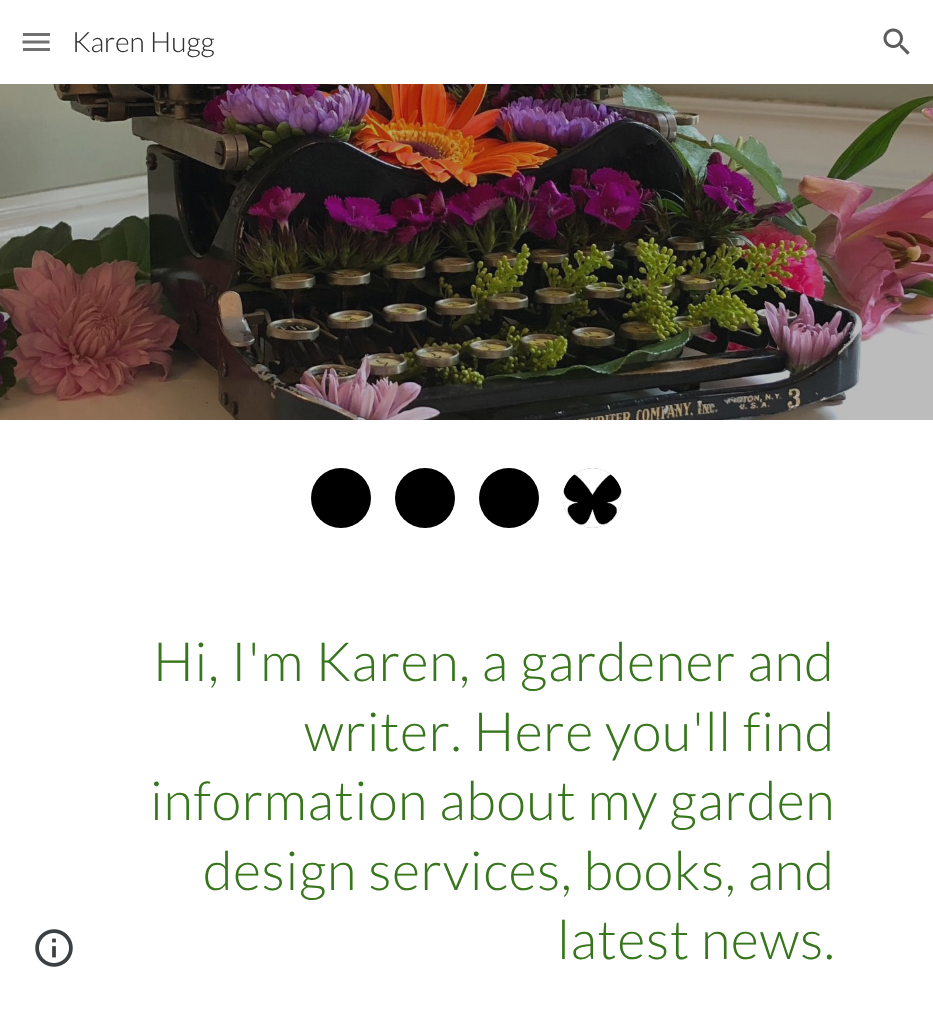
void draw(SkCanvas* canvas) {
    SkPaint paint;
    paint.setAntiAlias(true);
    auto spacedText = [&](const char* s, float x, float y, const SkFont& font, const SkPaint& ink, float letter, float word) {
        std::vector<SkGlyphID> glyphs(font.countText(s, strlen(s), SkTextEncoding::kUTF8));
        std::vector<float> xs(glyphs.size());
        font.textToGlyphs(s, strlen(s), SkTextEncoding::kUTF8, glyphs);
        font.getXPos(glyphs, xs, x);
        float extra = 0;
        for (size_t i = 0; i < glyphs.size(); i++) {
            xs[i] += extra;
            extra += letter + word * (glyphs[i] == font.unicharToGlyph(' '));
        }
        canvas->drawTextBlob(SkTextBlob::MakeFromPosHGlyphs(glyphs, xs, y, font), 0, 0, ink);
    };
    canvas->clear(0xFFFFFFFF);
    paint.setColor(0xFF5C5C5C);
    canvas->drawRect(SkRect::MakeXYWH(23, 33, 27, 3), paint);
    paint.setStyle(SkPaint::kStroke_Style);
    paint.setStrokeWidth(3);
    canvas->drawPath(SkPathBuilder().moveTo(22.5f, 42).lineTo(49.5f, 42).detach(), paint);
    paint.setStyle(SkPaint::kFill_Style);
    canvas->drawRect(SkRect::MakeXYWH(23, 48, 27, 3), paint);
    paint.setColor(0x1FFFFFFF);
    canvas->drawRect(SkRect::MakeXYWH(22, 33, 28, 18), paint);
    SkFont font1(fontMgr->matchFamilyStyle("Lato", SkFontStyle(300, SkFontStyle::kNormal_Width, SkFontStyle::kUpright_Slant)), 28);
    font1.setSubpixel(true);
    paint.setColor(0xFF333333);
    canvas->drawString("Karen Hugg", 72, 52, font1, paint);
    canvas->drawImageRect(SkImages::DeferredFromEncodedData(SkData::MakeFromFileName("img1.png")), SkRect::MakeXYWH(883, 28, 27, 27), SkSamplingOptions());
    canvas->drawImageRect(SkImages::DeferredFromEncodedData(SkData::MakeFromFileName("img2.png")), SkRect::MakeXYWH(35, 929, 38, 38), SkSamplingOptions());
    canvas->drawImageRect(SkImages::DeferredFromEncodedData(SkData::MakeFromFileName("img3.png")), SkRect::MakeXYWH(0, 84, 933, 336), SkSamplingOptions());
    paint.setColor(0xFF000000);
    canvas->drawCircle(341, 498, 30, paint);
    canvas->drawCircle(425, 498, 30, paint);
    canvas->drawCircle(509, 498, 30, paint);
    canvas->drawImageRect(SkImages::DeferredFromEncodedData(SkData::MakeFromFileName("img4.png")), SkRect::MakeXYWH(562, 468, 61, 60), SkSamplingOptions());
    SkFont font2(fontMgr->matchFamilyStyle("Lato", SkFontStyle(300, SkFontStyle::kNormal_Width, SkFontStyle::kUpright_Slant)), 54);
    font2.setSubpixel(true);
    paint.setColor(0xFF38761D);
    spacedText("Hi, I'm Karen, a gardener and", 153, 681, font2, paint, 0.75f, 0);
    spacedText("writer. Here you'll find", 304, 751, font2, paint, 0.75f, 0);
    spacedText("information about my garden", 150, 820, font2, paint, 0.75f, 0);
    spacedText("design services, books, and", 203, 890, font2, paint, 0.75f, 0);
    spacedText("latest news.", 557, 959, font2, paint, 0.75f, 0);
}
